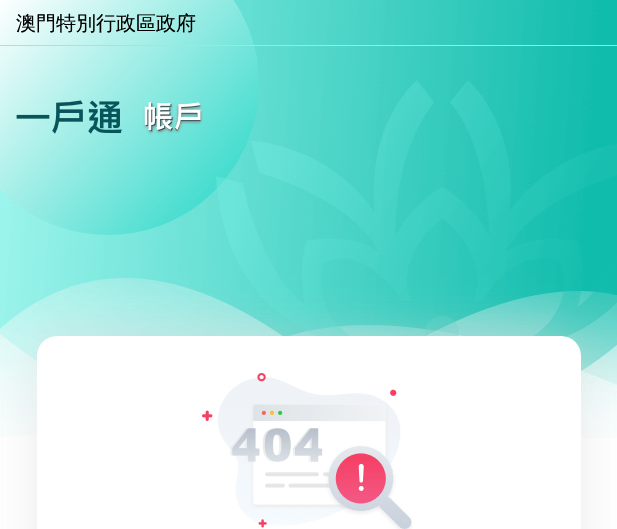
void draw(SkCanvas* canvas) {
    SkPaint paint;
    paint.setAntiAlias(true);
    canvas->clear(0xFFFFFFFF);
    canvas->drawImageRect(SkImages::DeferredFromEncodedData(SkData::MakeFromFileName("img1.png")), SkRect::MakeXYWH(0, 0, 617, 438), SkSamplingOptions());
    canvas->drawImageRect(SkImages::DeferredFromEncodedData(SkData::MakeFromFileName("img2.png")), SkRect::MakeXYWH(0, 0, 259, 235), SkSamplingOptions());
    canvas->drawImageRect(SkImages::DeferredFromEncodedData(SkData::MakeFromFileName("img3.png")), SkRect::MakeXYWH(216, 80, 401, 257), SkSamplingOptions());
    canvas->drawImageRect(SkImages::DeferredFromEncodedData(SkData::MakeFromFileName("img4.png")), SkRect::MakeXYWH(16, 100, 187, 35), SkSamplingOptions());
    paint.setColor(0xFF9EE6DF);
    canvas->drawRect(SkRect::MakeXYWH(0, 45, 617, 1), paint);
    SkFont font1(fontMgr->matchFamilyStyle("WenQuanYi Zen Hei", SkFontStyle(500, SkFontStyle::kNormal_Width, SkFontStyle::kUpright_Slant)), 20);
    font1.setSubpixel(true);
    paint.setColor(0xFF000000);
    canvas->drawString("澳門特別行政區政府", 16, 30, font1, paint);
    paint.setColor(0x80D6D6D6);
    paint.setMaskFilter(SkMaskFilter::MakeBlur(kNormal_SkBlurStyle, 25));
    canvas->drawRoundRect(SkRect::MakeXYWH(37, 336, 544, 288), 20, 20, paint);
    paint.setMaskFilter(nullptr);
    paint.setColor(0xFFFFFFFF);
    canvas->drawRoundRect(SkRect::MakeXYWH(37, 336, 544, 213), 20, 20, paint);
    canvas->drawImageRect(SkImages::DeferredFromEncodedData(SkData::MakeFromFileName("img5.png")), SkRect::MakeXYWH(202, 373, 211, 156), SkSamplingOptions());
}
